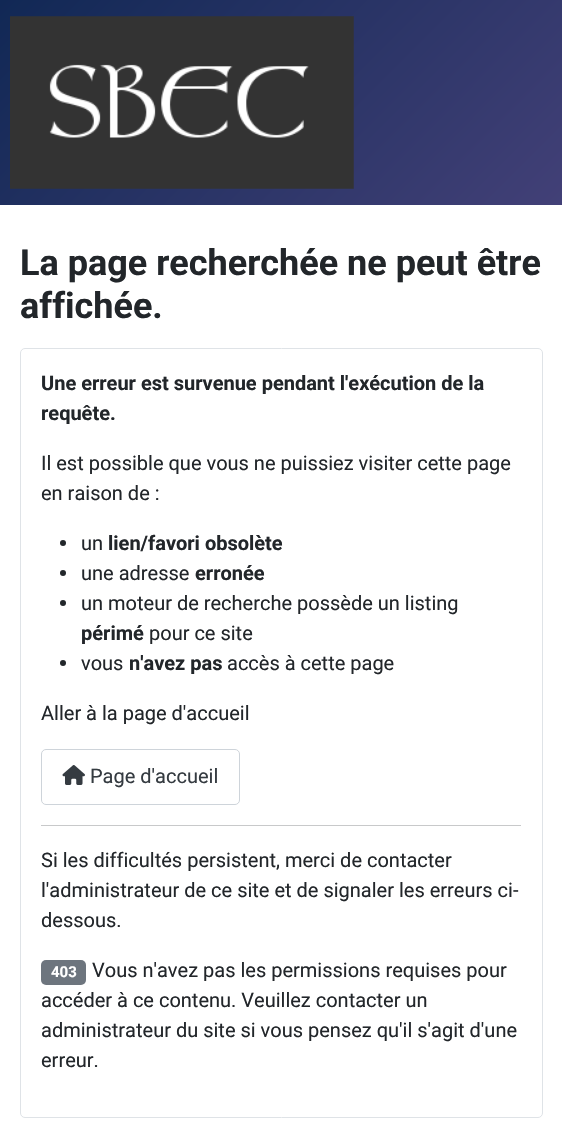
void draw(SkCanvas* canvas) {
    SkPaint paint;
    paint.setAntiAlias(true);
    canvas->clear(0xFFFFFFFF);
    {
        const SkColor colors[] = {0xFF112855, 0xFF424077};
        const float stops[] = {0, 1};
        const SkPoint ends[] = {{89, -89}, {473, 294}};
        paint.setShader(SkGradientShader::MakeLinear(ends, colors, stops, 2, SkTileMode::kClamp));
        paint.setAlpha(255);
    }
    canvas->drawRect(SkRect::MakeXYWH(0, 0, 562, 205), paint);
    canvas->drawImageRect(SkImages::DeferredFromEncodedData(SkData::MakeFromFileName("img1.png")), SkRect::MakeXYWH(10, 16, 344, 173), SkSamplingOptions());
    SkFont font1(fontMgr->matchFamilyStyle("Roboto", SkFontStyle::Bold()), 36);
    font1.setSubpixel(true);
    paint.setShader(nullptr);
    paint.setColor(0xFF22262A);
    canvas->drawString("La page recherchée ne peut être", 20, 275, font1, paint);
    canvas->drawString("affichée.", 20, 318, font1, paint);
    paint.setStyle(SkPaint::kStroke_Style);
    paint.setStrokeWidth(1);
    paint.setColor(0xFFDFE3E7);
    canvas->drawRoundRect(SkRect::MakeXYWH(20.5f, 348.5f, 522, 769), 4.5f, 4.5f, paint);
    SkFont font2(fontMgr->matchFamilyStyle("Roboto", SkFontStyle::Bold()), 20);
    font2.setSubpixel(true);
    paint.setStyle(SkPaint::kFill_Style);
    paint.setColor(0xFF22262A);
    canvas->drawString("Une erreur est survenue pendant l'exécution de la", 41, 390, font2, paint);
    canvas->drawString("requête.", 41, 420, font2, paint);
    SkFont font3(fontMgr->matchFamilyStyle("Roboto", SkFontStyle::Normal()), 20);
    font3.setSubpixel(true);
    canvas->drawString("Il est possible que vous ne puissiez visiter cette page", 41, 470, font3, paint);
    canvas->drawString("en raison de :", 41, 500, font3, paint);
    canvas->drawCircle(63, 543, 3, paint);
    canvas->drawString("un", 81, 550, font3, paint);
    canvas->drawString("lien/favori obsolète", 108, 550, font2, paint);
    canvas->drawCircle(63, 573, 3, paint);
    canvas->drawString("une adresse", 81, 580, font3, paint);
    canvas->drawString("erronée", 195, 580, font2, paint);
    canvas->drawCircle(63, 603, 3, paint);
    canvas->drawString("un moteur de recherche possède un listing", 81, 610, font3, paint);
    canvas->drawString("périmé", 81, 640, font2, paint);
    canvas->drawString("pour ce site", 149, 640, font3, paint);
    canvas->drawCircle(63, 663, 3, paint);
    canvas->drawString("vous", 81, 670, font3, paint);
    canvas->drawString("n'avez pas", 129, 670, font2, paint);
    canvas->drawString("accès à cette page", 227, 670, font3, paint);
    canvas->drawString("Aller à la page d'accueil", 41, 720, font3, paint);
    paint.setStyle(SkPaint::kStroke_Style);
    paint.setColor(0xFFCED4DA);
    canvas->drawRoundRect(SkRect::MakeXYWH(41.5f, 749.5f, 198, 55), 4.5f, 4.5f, paint);
    canvas->drawImageRect(SkImages::DeferredFromEncodedData(SkData::MakeFromFileName("img2.png")), SkRect::MakeXYWH(62, 765, 23, 20), SkSamplingOptions());
    paint.setStyle(SkPaint::kFill_Style);
    paint.setColor(0xFF353B41);
    canvas->drawString("Page d'accueil", 90, 783, font3, paint);
    paint.setColor(0xFFC8C9CA);
    canvas->drawRect(SkRect::MakeXYWH(41, 825, 480, 1), paint);
    paint.setColor(0xFF22262A);
    canvas->drawString("Si les difficultés persistent, merci de contacter", 41, 867, font3, paint);
    canvas->drawString("l'administrateur de ce site et de signaler les erreurs ci-", 41, 897, font3, paint);
    canvas->drawString("dessous.", 41, 927, font3, paint);
    paint.setColor(0xFF6D757E);
    canvas->drawRoundRect(SkRect::MakeXYWH(41, 960, 45, 25), 5, 5, paint);
    SkFont font4(fontMgr->matchFamilyStyle("Roboto", SkFontStyle::Bold()), 15);
    font4.setSubpixel(true);
    paint.setColor(0xFFFFFFFF);
    canvas->drawString("403", 51, 977, font4, paint);
    paint.setColor(0xFF22262A);
    canvas->drawString("Vous n'avez pas les permissions requises pour", 92, 977, font3, paint);
    canvas->drawString("accéder à ce contenu. Veuillez contacter un", 41, 1007, font3, paint);
    canvas->drawString("administrateur du site si vous pensez qu'il s'agit d'une", 41, 1037, font3, paint);
    canvas->drawString("erreur.", 41, 1067, font3, paint);
}
